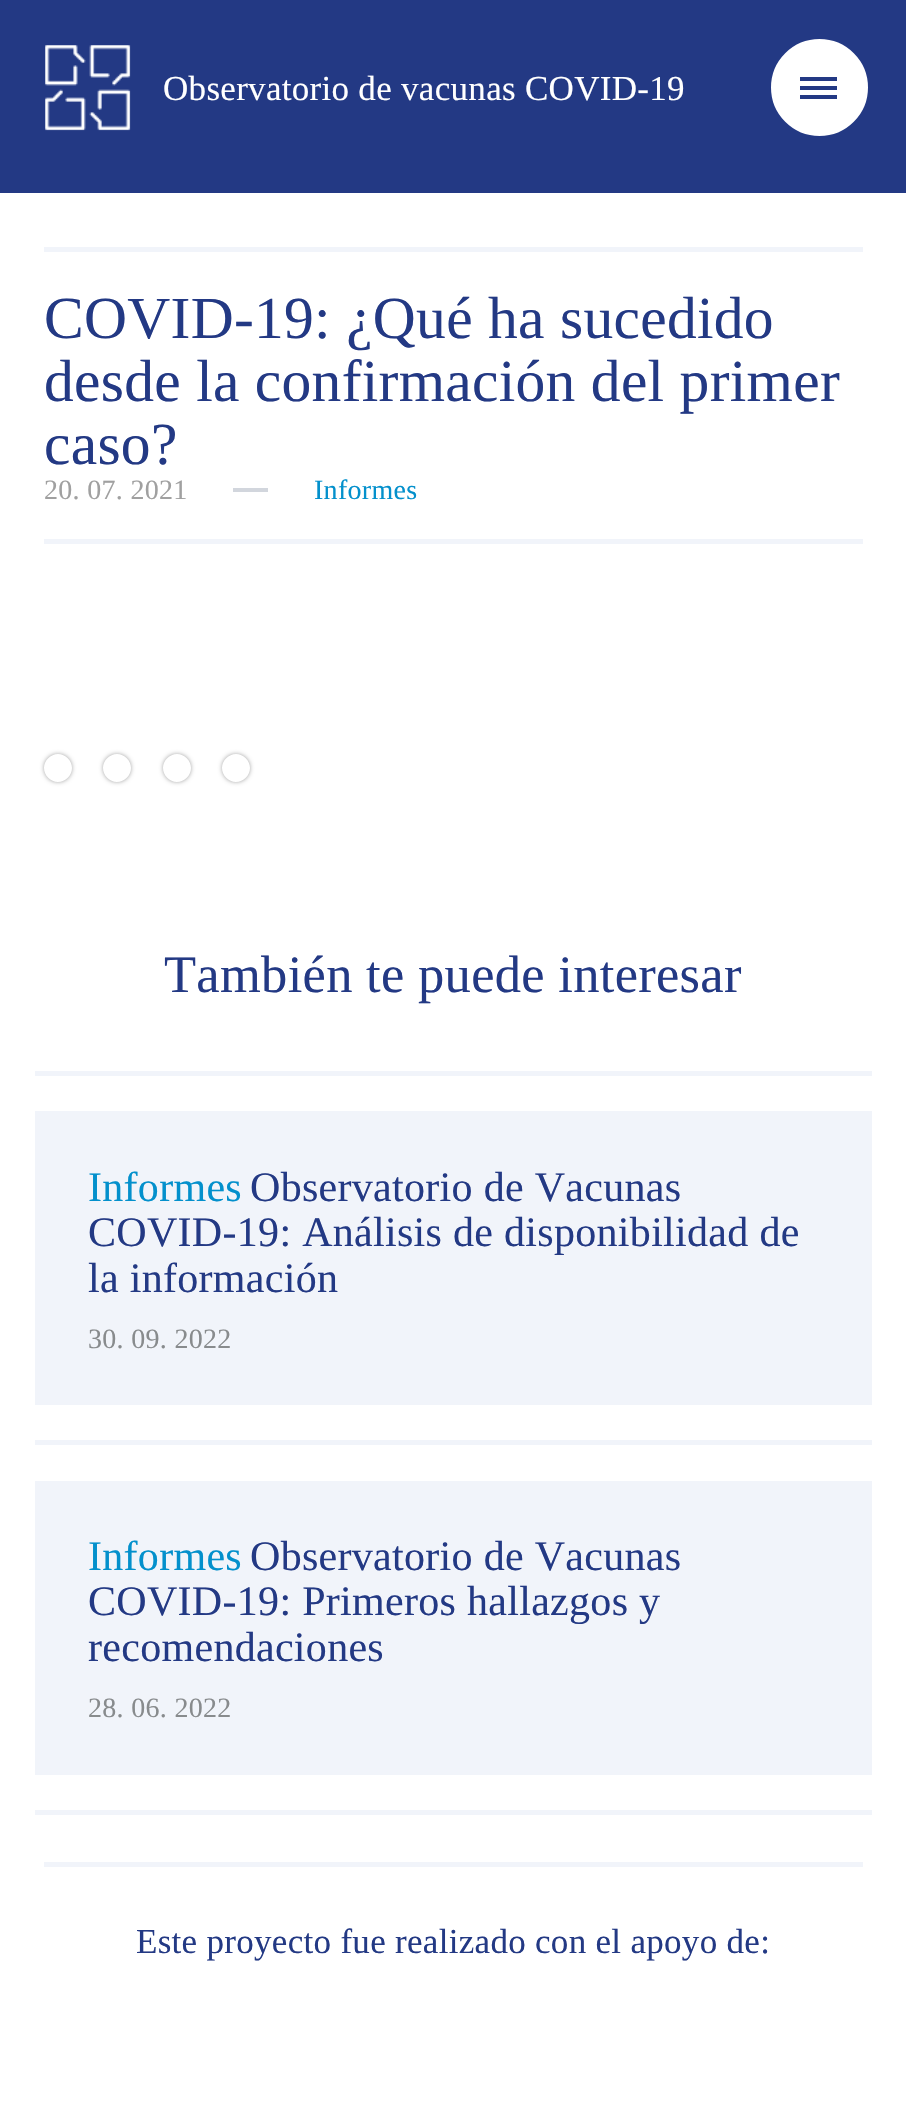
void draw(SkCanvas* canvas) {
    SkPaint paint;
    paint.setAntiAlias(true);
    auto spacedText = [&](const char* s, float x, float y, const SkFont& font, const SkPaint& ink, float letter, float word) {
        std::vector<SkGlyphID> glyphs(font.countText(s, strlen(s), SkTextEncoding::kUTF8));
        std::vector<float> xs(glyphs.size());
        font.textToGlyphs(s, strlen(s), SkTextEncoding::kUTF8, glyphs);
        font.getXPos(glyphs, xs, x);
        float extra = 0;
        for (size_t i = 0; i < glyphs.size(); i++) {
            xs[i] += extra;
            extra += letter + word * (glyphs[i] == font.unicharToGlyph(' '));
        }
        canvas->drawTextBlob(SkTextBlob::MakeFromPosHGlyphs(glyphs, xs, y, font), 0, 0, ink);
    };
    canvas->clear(0xFFFFFFFF);
    paint.setColor(0xFF233984);
    canvas->drawRect(SkRect::MakeXYWH(0, 0, 906, 193), paint);
    paint.setColor(0xFFFFFFFF);
    canvas->drawCircle(819.5f, 87.5f, 50.5f, paint);
    paint.setStyle(SkPaint::kStroke_Style);
    paint.setStrokeWidth(4);
    paint.setColor(0xFF233984);
    canvas->drawCircle(819.5f, 87.5f, 50.5f, paint);
    paint.setStyle(SkPaint::kFill_Style);
    canvas->drawRect(SkRect::MakeXYWH(800, 77, 37, 4), paint);
    canvas->drawRect(SkRect::MakeXYWH(800, 86, 37, 4), paint);
    canvas->drawRect(SkRect::MakeXYWH(800, 95, 37, 4), paint);
    canvas->drawImageRect(SkImages::DeferredFromEncodedData(SkData::MakeFromFileName("img1.png")), SkRect::MakeXYWH(45, 45, 86, 86), SkSamplingOptions());
    SkFont font1(fontMgr->matchFamilyStyle("Liberation Serif", SkFontStyle::Normal()), 35);
    font1.setSubpixel(true);
    paint.setColor(0xFFFFFFFF);
    spacedText("Observatorio de vacunas COVID-19", 163, 100, font1, paint, 0.3f, 0);
    paint.setColor(0xFFF1F4FA);
    canvas->drawRect(SkRect::MakeXYWH(44, 247, 819, 5), paint);
    canvas->drawRect(SkRect::MakeXYWH(44, 539, 819, 5), paint);
    SkFont font2(fontMgr->matchFamilyStyle("Liberation Serif", SkFontStyle::Normal()), 59.5f);
    font2.setSubpixel(true);
    paint.setColor(0xFF233984);
    spacedText("COVID-19: ¿Qué ha sucedido", 44, 338, font2, paint, 0.3f, 0);
    spacedText("desde la confirmación del primer", 44, 401, font2, paint, 0.3f, 0);
    spacedText("caso?", 44, 464, font2, paint, 0.3f, 0);
    SkFont font3(fontMgr->matchFamilyStyle("Liberation Serif", SkFontStyle::Normal()), 28);
    font3.setSubpixel(true);
    paint.setColor(0xFFA0A0A0);
    spacedText("20. 07. 2021", 44, 499, font3, paint, 0.3f, 0);
    paint.setColor(0xFFD2D6DD);
    canvas->drawRect(SkRect::MakeXYWH(233, 488, 35, 4), paint);
    paint.setColor(0xFF0390CC);
    spacedText("Informes", 314, 499, font3, paint, 0.3f, 0);
    canvas->save();
    canvas->clipPath(SkPathBuilder(SkPathFillType::kEvenOdd).moveTo(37, 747).lineTo(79, 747).lineTo(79, 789).lineTo(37, 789).close().moveTo(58, 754).cubicTo(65.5f, 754, 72, 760.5f, 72, 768).cubicTo(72, 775.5f, 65.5f, 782, 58, 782).cubicTo(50.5f, 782, 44, 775.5f, 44, 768).cubicTo(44, 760.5f, 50.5f, 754, 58, 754).close().detach(), true);
    paint.setColor(0x59000000);
    paint.setMaskFilter(SkMaskFilter::MakeBlur(kNormal_SkBlurStyle, 2));
    canvas->drawRoundRect(SkRect::MakeXYWH(44, 754, 28, 28), 14, 14, paint);
    paint.setMaskFilter(nullptr);
    canvas->restore();
    canvas->save();
    canvas->clipPath(SkPathBuilder(SkPathFillType::kEvenOdd).moveTo(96, 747).lineTo(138, 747).lineTo(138, 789).lineTo(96, 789).close().moveTo(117, 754).cubicTo(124.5f, 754, 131, 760.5f, 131, 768).cubicTo(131, 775.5f, 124.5f, 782, 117, 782).cubicTo(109.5f, 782, 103, 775.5f, 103, 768).cubicTo(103, 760.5f, 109.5f, 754, 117, 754).close().detach(), true);
    paint.setMaskFilter(SkMaskFilter::MakeBlur(kNormal_SkBlurStyle, 2));
    canvas->drawRoundRect(SkRect::MakeXYWH(103, 754, 28, 28), 14, 14, paint);
    paint.setMaskFilter(nullptr);
    canvas->restore();
    canvas->save();
    canvas->clipPath(SkPathBuilder(SkPathFillType::kEvenOdd).moveTo(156, 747).lineTo(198, 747).lineTo(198, 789).lineTo(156, 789).close().moveTo(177, 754).cubicTo(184.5f, 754, 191, 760.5f, 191, 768).cubicTo(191, 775.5f, 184.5f, 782, 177, 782).cubicTo(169.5f, 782, 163, 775.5f, 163, 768).cubicTo(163, 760.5f, 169.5f, 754, 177, 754).close().detach(), true);
    paint.setMaskFilter(SkMaskFilter::MakeBlur(kNormal_SkBlurStyle, 2));
    canvas->drawRoundRect(SkRect::MakeXYWH(163, 754, 28, 28), 14, 14, paint);
    paint.setMaskFilter(nullptr);
    canvas->restore();
    canvas->save();
    canvas->clipPath(SkPathBuilder(SkPathFillType::kEvenOdd).moveTo(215, 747).lineTo(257, 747).lineTo(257, 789).lineTo(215, 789).close().moveTo(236, 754).cubicTo(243.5f, 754, 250, 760.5f, 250, 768).cubicTo(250, 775.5f, 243.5f, 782, 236, 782).cubicTo(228.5f, 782, 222, 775.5f, 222, 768).cubicTo(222, 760.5f, 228.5f, 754, 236, 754).close().detach(), true);
    paint.setMaskFilter(SkMaskFilter::MakeBlur(kNormal_SkBlurStyle, 2));
    canvas->drawRoundRect(SkRect::MakeXYWH(222, 754, 28, 28), 14, 14, paint);
    paint.setMaskFilter(nullptr);
    canvas->restore();
    SkFont font4(fontMgr->matchFamilyStyle("Liberation Serif", SkFontStyle::Normal()), 52.5f);
    font4.setSubpixel(true);
    paint.setColor(0xFF233984);
    spacedText("También te puede interesar", 164, 992, font4, paint, 0.3f, 0);
    paint.setColor(0xFFF1F4FA);
    canvas->drawRect(SkRect::MakeXYWH(35, 1071, 837, 5), paint);
    canvas->drawRect(SkRect::MakeXYWH(35, 1440, 837, 5), paint);
    canvas->drawRect(SkRect::MakeXYWH(35, 1111, 837, 294), paint);
    SkFont font5(fontMgr->matchFamilyStyle("Liberation Serif", SkFontStyle::Normal()), 42);
    font5.setSubpixel(true);
    paint.setColor(0xFF0390CC);
    spacedText("Informes", 88, 1201, font5, paint, 0.3f, 0);
    paint.setColor(0xFF233984);
    spacedText("Observatorio de Vacunas", 250, 1201, font5, paint, 0.3f, 0);
    spacedText("COVID-19: Análisis de disponibilidad de", 88, 1246, font5, paint, 0.3f, 0);
    spacedText("la información", 88, 1292, font5, paint, 0.3f, 0);
    paint.setColor(0xFF888B8D);
    spacedText("30. 09. 2022", 88, 1348, font3, paint, 0.3f, 0);
    paint.setColor(0xFFF1F4FA);
    canvas->drawRect(SkRect::MakeXYWH(35, 1810, 837, 5), paint);
    canvas->drawRect(SkRect::MakeXYWH(35, 1481, 837, 294), paint);
    paint.setColor(0xFF0390CC);
    spacedText("Informes", 88, 1570, font5, paint, 0.3f, 0);
    paint.setColor(0xFF233984);
    spacedText("Observatorio de Vacunas", 250, 1570, font5, paint, 0.3f, 0);
    spacedText("COVID-19: Primeros hallazgos y", 88, 1615, font5, paint, 0.3f, 0);
    spacedText("recomendaciones", 88, 1661, font5, paint, 0.3f, 0);
    paint.setColor(0xFF888B8D);
    spacedText("28. 06. 2022", 88, 1717, font3, paint, 0.3f, 0);
    paint.setColor(0xFFF1F4FA);
    canvas->drawRect(SkRect::MakeXYWH(44, 1862, 819, 5), paint);
    paint.setColor(0xFF233984);
    spacedText("Este proyecto fue realizado con el apoyo de:", 136, 1953, font1, paint, 0.3f, 0);
}
